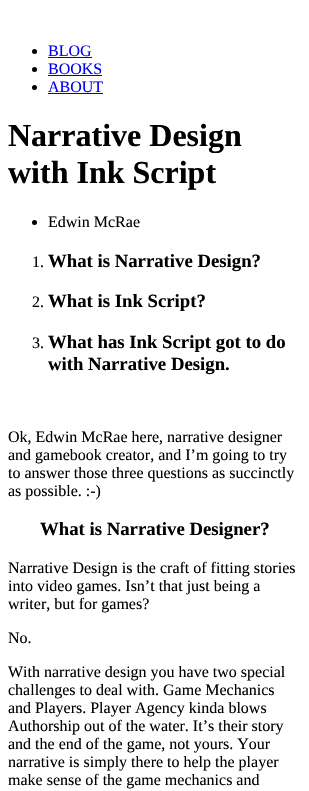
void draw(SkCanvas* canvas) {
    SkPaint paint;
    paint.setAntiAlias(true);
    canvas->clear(0xFFFFFFFF);
    paint.setColor(0xFF000000);
    canvas->drawCircle(34.5f, 51.5f, 2.5f, paint);
    SkFont font1(fontMgr->matchFamilyStyle("Liberation Serif", SkFontStyle::Normal()), 16);
    font1.setSubpixel(true);
    paint.setColor(0xFF0000EE);
    canvas->drawString("BLOG", 48, 56, font1, paint);
    canvas->drawRect(SkRect::MakeXYWH(48, 57, 44, 1), paint);
    paint.setColor(0xFF000000);
    canvas->drawCircle(34.5f, 69.5f, 2.5f, paint);
    paint.setColor(0xFF0000EE);
    canvas->drawString("BOOKS", 48, 74, font1, paint);
    canvas->drawRect(SkRect::MakeXYWH(48, 75, 54, 1), paint);
    paint.setColor(0xFF000000);
    canvas->drawCircle(34.5f, 87.5f, 2.5f, paint);
    paint.setColor(0xFF0000EE);
    canvas->drawString("ABOUT", 48, 92, font1, paint);
    canvas->drawRect(SkRect::MakeXYWH(48, 93, 55, 1), paint);
    SkFont font2(fontMgr->matchFamilyStyle("Liberation Serif", SkFontStyle::Bold()), 32);
    font2.setSubpixel(true);
    paint.setColor(0xFF000000);
    canvas->drawString("Narrative Design", 8, 146, font2, paint);
    canvas->drawString("with Ink Script", 8, 183, font2, paint);
    canvas->drawCircle(34.5f, 222.5f, 2.5f, paint);
    canvas->drawString("Edwin McRae", 48, 227, font1, paint);
    canvas->drawString("1.", 32, 267, font1, paint);
    SkFont font3(fontMgr->matchFamilyStyle("Liberation Serif", SkFontStyle::Bold()), 18.75f);
    font3.setSubpixel(true);
    canvas->drawString("What is Narrative Design?", 48, 267, font3, paint);
    canvas->drawString("2.", 32, 307, font1, paint);
    canvas->drawString("What is Ink Script?", 48, 307, font3, paint);
    canvas->drawString("3.", 32, 348, font1, paint);
    canvas->drawString("What has Ink Script got to do", 48, 348, font3, paint);
    canvas->drawString("with Narrative Design.", 48, 370, font3, paint);
    canvas->drawString("Ok, Edwin McRae here, narrative designer", 8, 442, font1, paint);
    canvas->drawString("and gamebook creator, and I’m going to try", 8, 460, font1, paint);
    canvas->drawString("to answer those three questions as succinctly", 8, 478, font1, paint);
    canvas->drawString("as possible. :-)", 8, 496, font1, paint);
    canvas->drawString("What is Narrative Designer?", 40, 535, font3, paint);
    canvas->drawString("Narrative Design is the craft of fitting stories", 8, 573, font1, paint);
    canvas->drawString("into video games. Isn’t that just being a", 8, 591, font1, paint);
    canvas->drawString("writer, but for games?", 8, 609, font1, paint);
    canvas->drawString("No.", 8, 643, font1, paint);
    canvas->drawString("With narrative design you have two special", 8, 677, font1, paint);
    canvas->drawString("challenges to deal with. Game Mechanics", 8, 695, font1, paint);
    canvas->drawString("and Players. Player Agency kinda blows", 8, 713, font1, paint);
    canvas->drawString("Authorship out of the water. It’s their story", 8, 731, font1, paint);
    canvas->drawString("and the end of the game, not yours. Your", 8, 749, font1, paint);
    canvas->drawString("narrative is simply there to help the player", 8, 767, font1, paint);
    canvas->drawString("make sense of the game mechanics and", 8, 785, font1, paint);
}
